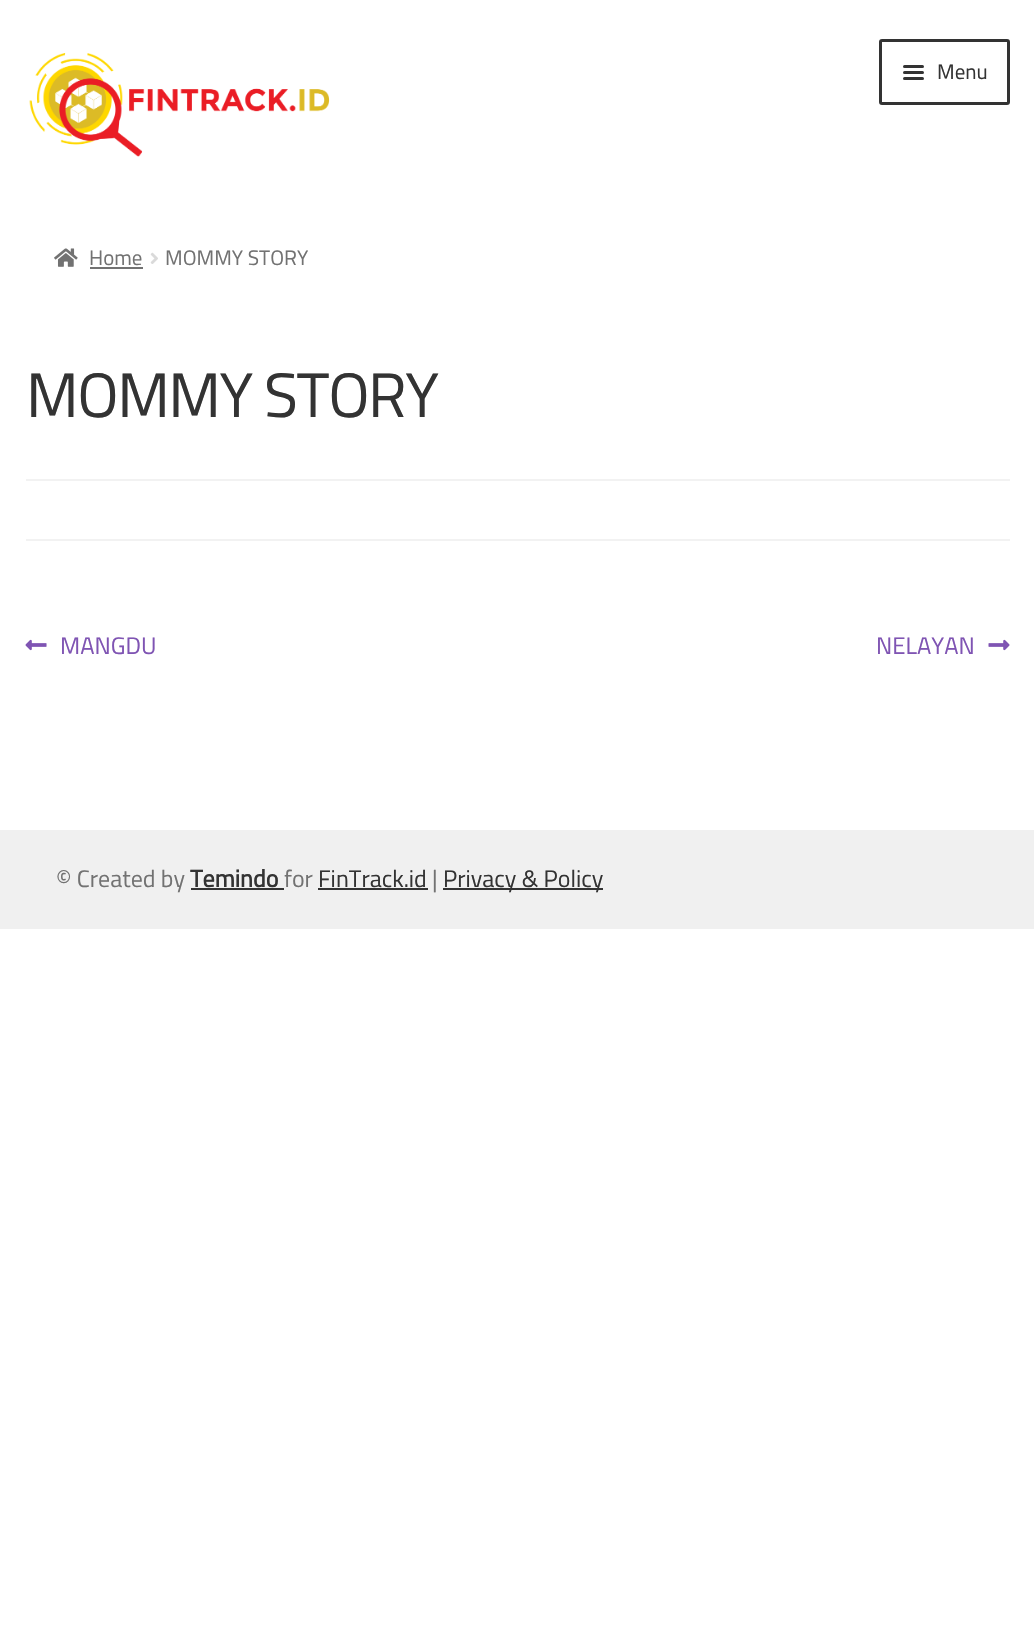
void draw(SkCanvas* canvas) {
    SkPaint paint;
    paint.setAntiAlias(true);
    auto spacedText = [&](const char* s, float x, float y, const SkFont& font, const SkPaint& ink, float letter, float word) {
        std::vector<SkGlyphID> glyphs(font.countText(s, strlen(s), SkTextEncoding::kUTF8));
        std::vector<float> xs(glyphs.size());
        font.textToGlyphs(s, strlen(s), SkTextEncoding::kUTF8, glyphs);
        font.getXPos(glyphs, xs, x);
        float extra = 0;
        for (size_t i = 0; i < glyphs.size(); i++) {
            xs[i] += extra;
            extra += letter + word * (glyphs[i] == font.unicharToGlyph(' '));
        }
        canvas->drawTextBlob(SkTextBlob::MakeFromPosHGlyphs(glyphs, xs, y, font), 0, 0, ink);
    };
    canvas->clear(0xFFFFFFFF);
    canvas->drawImageRect(SkImages::DeferredFromEncodedData(SkData::MakeFromFileName("img1.png")), SkRect::MakeXYWH(29, 53, 301, 104), SkSamplingOptions());
    paint.setStyle(SkPaint::kStroke_Style);
    paint.setStrokeWidth(3);
    paint.setColor(0xFF333333);
    canvas->drawRoundRect(SkRect::MakeXYWH(880.5f, 40.5f, 128, 63), 1.5f, 1.5f, paint);
    paint.setStyle(SkPaint::kFill_Style);
    canvas->drawRoundRect(SkRect::MakeXYWH(903, 65, 21, 3), 1.5f, 1.5f, paint);
    canvas->drawRoundRect(SkRect::MakeXYWH(903, 71, 21, 3), 1.5f, 1.5f, paint);
    SkFont font1(fontMgr->matchFamilyStyle("Titillium Web", SkFontStyle::Normal()), 21);
    font1.setSubpixel(true);
    canvas->drawString("Menu", 937, 79, font1, paint);
    canvas->drawRoundRect(SkRect::MakeXYWH(903, 77, 21, 3), 1.5f, 1.5f, paint);
    canvas->drawImageRect(SkImages::DeferredFromEncodedData(SkData::MakeFromFileName("img2.png")), SkRect::MakeXYWH(54, 248, 24, 19), SkSamplingOptions());
    paint.setColor(0xFF727272);
    canvas->drawString("Home", 89, 265, font1, paint);
    canvas->drawRect(SkRect::MakeXYWH(90, 267, 53, 2), paint);
    canvas->drawImageRect(SkImages::DeferredFromEncodedData(SkData::MakeFromFileName("img3.png")), SkRect::MakeXYWH(150, 252, 8, 12), SkSamplingOptions());
    canvas->drawString("MOMMY STORY", 165, 265, font1, paint);
    paint.setColor(0xFFF2F2F2);
    canvas->drawRect(SkRect::MakeXYWH(26, 479, 984, 2), paint);
    SkFont font2(fontMgr->matchFamilyStyle("Titillium Web", SkFontStyle::Normal()), 62.75f);
    font2.setSubpixel(true);
    paint.setColor(0xFF333333);
    spacedText("MOMMY STORY", 26, 417, font2, paint, -1.5f, 0);
    paint.setColor(0xFFF2F2F2);
    canvas->drawRect(SkRect::MakeXYWH(26, 539, 984, 2), paint);
    canvas->drawImageRect(SkImages::DeferredFromEncodedData(SkData::MakeFromFileName("img4.png")), SkRect::MakeXYWH(25, 639, 22, 12), SkSamplingOptions());
    SkFont font3(fontMgr->matchFamilyStyle("Titillium Web", SkFontStyle::Normal()), 24);
    font3.setSubpixel(true);
    paint.setColor(0xFF7F54B3);
    canvas->drawString("MANGDU", 60, 654, font3, paint);
    canvas->drawString("NELAYAN", 876, 654, font3, paint);
    canvas->drawImageRect(SkImages::DeferredFromEncodedData(SkData::MakeFromFileName("img5.png")), SkRect::MakeXYWH(988, 639, 22, 12), SkSamplingOptions());
    paint.setColor(0xFFF0F0F0);
    canvas->drawRect(SkRect::MakeXYWH(0, 830, 1034, 99), paint);
    paint.setColor(0xFF727272);
    canvas->drawString("© Created by", 56, 887, font3, paint);
    SkFont font4(fontMgr->matchFamilyStyle("Titillium Web", SkFontStyle::Bold()), 24);
    font4.setSubpixel(true);
    paint.setColor(0xFF333333);
    canvas->drawString("Temindo", 190, 887, font4, paint);
    canvas->drawRect(SkRect::MakeXYWH(191, 888, 93, 2), paint);
    paint.setColor(0xFF727272);
    canvas->drawString("for", 284, 887, font3, paint);
    paint.setColor(0xFF333333);
    canvas->drawString("FinTrack.id", 318, 887, font3, paint);
    canvas->drawRect(SkRect::MakeXYWH(318, 888, 110, 2), paint);
    paint.setColor(0xFF727272);
    canvas->drawString("|", 432, 887, font3, paint);
    paint.setColor(0xFF333333);
    canvas->drawRect(SkRect::MakeXYWH(443, 888, 160, 2), paint);
    canvas->drawString("Privacy & Policy", 443, 887, font3, paint);
}
